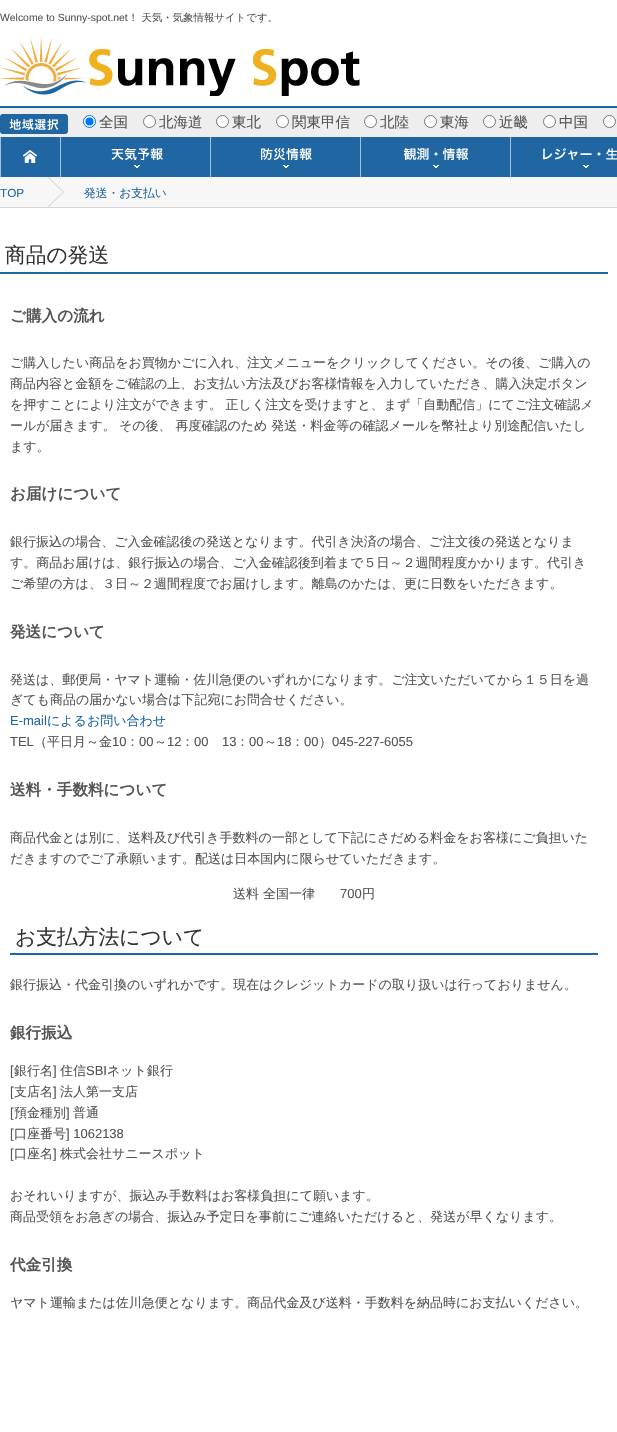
void draw(SkCanvas* canvas) {
    SkPaint paint;
    paint.setAntiAlias(true);
    canvas->clear(0xFFFFFFFF);
    SkFont font1(fontMgr->matchFamilyStyle("Liberation Sans", SkFontStyle::Normal()), 10.4f);
    font1.setSubpixel(true);
    paint.setColor(0xFF545454);
    canvas->drawString("Welcome to Sunny-spot.net", 0, 21, font1, paint);
    SkFont font2(fontMgr->matchFamilyStyle("WenQuanYi Zen Hei", SkFontStyle(500, SkFontStyle::kNormal_Width, SkFontStyle::kUpright_Slant)), 10.4f);
    font2.setSubpixel(true);
    canvas->drawString("！ 天気・気象情報サイトです。", 128, 21, font2, paint);
    canvas->drawImageRect(SkImages::DeferredFromEncodedData(SkData::MakeFromFileName("img1.png")), SkRect::MakeXYWH(0, 37, 360, 59), SkSamplingOptions());
    paint.setColor(0xFFEEEEEE);
    canvas->drawRect(SkRect::MakeXYWH(0, 108, 617, 29), paint);
    paint.setColor(0xFF1F66A3);
    canvas->drawRect(SkRect::MakeXYWH(0, 106, 617, 2), paint);
    canvas->drawImageRect(SkImages::DeferredFromEncodedData(SkData::MakeFromFileName("img2.png")), SkRect::MakeXYWH(0, 114, 68, 20), SkSamplingOptions());
    paint.setColor(0xFFFFFFFF);
    canvas->drawCircle(89.5f, 121.5f, 6, paint);
    paint.setStyle(SkPaint::kStroke_Style);
    paint.setStrokeWidth(1);
    paint.setColor(0xFF0075FF);
    canvas->drawCircle(89.5f, 121.5f, 6, paint);
    paint.setStyle(SkPaint::kFill_Style);
    canvas->drawCircle(89.5f, 121.5f, 4, paint);
    SkFont font3(fontMgr->matchFamilyStyle("WenQuanYi Zen Hei", SkFontStyle(500, SkFontStyle::kNormal_Width, SkFontStyle::kUpright_Slant)), 14.5f);
    font3.setSubpixel(true);
    paint.setColor(0xFF545454);
    canvas->drawString("全国", 99, 127, font3, paint);
    paint.setColor(0xFFFFFFFF);
    canvas->drawCircle(149.5f, 121.5f, 6, paint);
    paint.setStyle(SkPaint::kStroke_Style);
    paint.setColor(0xFF767676);
    canvas->drawCircle(149.5f, 121.5f, 6, paint);
    paint.setStyle(SkPaint::kFill_Style);
    paint.setColor(0xFF545454);
    canvas->drawString("北海道", 159, 127, font3, paint);
    paint.setColor(0xFFFFFFFF);
    canvas->drawCircle(222.5f, 121.5f, 6, paint);
    paint.setStyle(SkPaint::kStroke_Style);
    paint.setColor(0xFF767676);
    canvas->drawCircle(222.5f, 121.5f, 6, paint);
    paint.setStyle(SkPaint::kFill_Style);
    paint.setColor(0xFF545454);
    canvas->drawString("東北", 232, 127, font3, paint);
    paint.setColor(0xFFFFFFFF);
    canvas->drawCircle(282.5f, 121.5f, 6, paint);
    paint.setStyle(SkPaint::kStroke_Style);
    paint.setColor(0xFF767676);
    canvas->drawCircle(282.5f, 121.5f, 6, paint);
    paint.setStyle(SkPaint::kFill_Style);
    paint.setColor(0xFF545454);
    canvas->drawString("関東甲信", 292, 127, font3, paint);
    paint.setColor(0xFFFFFFFF);
    canvas->drawCircle(370.5f, 121.5f, 6, paint);
    paint.setStyle(SkPaint::kStroke_Style);
    paint.setColor(0xFF767676);
    canvas->drawCircle(370.5f, 121.5f, 6, paint);
    paint.setStyle(SkPaint::kFill_Style);
    paint.setColor(0xFF545454);
    canvas->drawString("北陸", 380, 127, font3, paint);
    paint.setColor(0xFFFFFFFF);
    canvas->drawCircle(430.5f, 121.5f, 6, paint);
    paint.setStyle(SkPaint::kStroke_Style);
    paint.setColor(0xFF767676);
    canvas->drawCircle(430.5f, 121.5f, 6, paint);
    paint.setStyle(SkPaint::kFill_Style);
    paint.setColor(0xFF545454);
    canvas->drawString("東海", 440, 127, font3, paint);
    paint.setColor(0xFFFFFFFF);
    canvas->drawCircle(489.5f, 121.5f, 6, paint);
    paint.setStyle(SkPaint::kStroke_Style);
    paint.setColor(0xFF767676);
    canvas->drawCircle(489.5f, 121.5f, 6, paint);
    paint.setStyle(SkPaint::kFill_Style);
    paint.setColor(0xFF545454);
    canvas->drawString("近畿", 499, 127, font3, paint);
    paint.setColor(0xFFFFFFFF);
    canvas->drawCircle(549.5f, 121.5f, 6, paint);
    paint.setStyle(SkPaint::kStroke_Style);
    paint.setColor(0xFF767676);
    canvas->drawCircle(549.5f, 121.5f, 6, paint);
    paint.setStyle(SkPaint::kFill_Style);
    paint.setColor(0xFF545454);
    canvas->drawString("中国", 559, 127, font3, paint);
    paint.setColor(0xFFFFFFFF);
    canvas->drawCircle(609.5f, 121.5f, 6, paint);
    paint.setStyle(SkPaint::kStroke_Style);
    paint.setColor(0xFF767676);
    canvas->drawCircle(609.5f, 121.5f, 6, paint);
    canvas->drawImageRect(SkImages::DeferredFromEncodedData(SkData::MakeFromFileName("img3.png")), SkRect::MakeXYWH(0, 137, 60, 40), SkSamplingOptions());
    canvas->drawImageRect(SkImages::DeferredFromEncodedData(SkData::MakeFromFileName("img4.png")), SkRect::MakeXYWH(60, 137, 150, 40), SkSamplingOptions());
    canvas->drawImageRect(SkImages::DeferredFromEncodedData(SkData::MakeFromFileName("img5.png")), SkRect::MakeXYWH(210, 137, 150, 40), SkSamplingOptions());
    canvas->drawImageRect(SkImages::DeferredFromEncodedData(SkData::MakeFromFileName("img6.png")), SkRect::MakeXYWH(360, 137, 150, 40), SkSamplingOptions());
    canvas->drawImageRect(SkImages::DeferredFromEncodedData(SkData::MakeFromFileName("img7.png")), SkRect::MakeXYWH(510, 137, 107, 40), SkSamplingOptions());
    paint.setStyle(SkPaint::kFill_Style);
    paint.setColor(0xFFF7F7F7);
    canvas->drawRect(SkRect::MakeXYWH(0, 177, 617, 30), paint);
    paint.setColor(0xFFD6D6D6);
    canvas->drawRect(SkRect::MakeXYWH(0, 207, 617, 1), paint);
    canvas->drawImageRect(SkImages::DeferredFromEncodedData(SkData::MakeFromFileName("img8.png")), SkRect::MakeXYWH(48, 177, 16, 30), SkSamplingOptions());
    SkFont font4(fontMgr->matchFamilyStyle("Liberation Sans", SkFontStyle::Normal()), 11.75f);
    font4.setSubpixel(true);
    paint.setColor(0xFF1F66A3);
    canvas->drawString("TOP", 0, 197, font4, paint);
    SkFont font5(fontMgr->matchFamilyStyle("WenQuanYi Zen Hei", SkFontStyle(500, SkFontStyle::kNormal_Width, SkFontStyle::kUpright_Slant)), 11.75f);
    font5.setSubpixel(true);
    canvas->drawString("発送・お支払い", 84, 197, font5, paint);
    canvas->drawRect(SkRect::MakeXYWH(0, 272, 608, 2), paint);
    SkFont font6(fontMgr->matchFamilyStyle("WenQuanYi Zen Hei", SkFontStyle(500, SkFontStyle::kNormal_Width, SkFontStyle::kUpright_Slant)), 20.75f);
    font6.setSubpixel(true);
    paint.setColor(0xFF333333);
    canvas->drawString("商品の発送", 5, 262, font6, paint);
    SkFont font7(fontMgr->matchFamilyStyle("WenQuanYi Zen Hei", SkFontStyle::Bold()), 15.6f);
    font7.setSubpixel(true);
    paint.setColor(0xFF545454);
    canvas->drawString("ご購入の流れ", 10, 321, font7, paint);
    SkFont font8(fontMgr->matchFamilyStyle("WenQuanYi Zen Hei", SkFontStyle(500, SkFontStyle::kNormal_Width, SkFontStyle::kUpright_Slant)), 13);
    font8.setSubpixel(true);
    canvas->drawString("ご購入したい商品をお買物かごに入れ、注文メニューをクリックしてください。その後、ご購入の", 10, 367, font8, paint);
    canvas->drawString("商品内容と金額をご確認の上、お支払い方法及びお客様情報を入力していただき、購入決定ボタン", 10, 388, font8, paint);
    canvas->drawString("を押すことにより注文ができます。 正しく注文を受けますと、まず「自動配信」にてご注文確認メ", 10, 409, font8, paint);
    canvas->drawString("ールが届きます。", 10, 430, font8, paint);
    canvas->drawString("その後、 再度確認のため 発送・料金等の確認メールを幣社より別途配信いたし", 119, 430, font8, paint);
    canvas->drawString("ます。", 10, 451, font8, paint);
    canvas->drawString("お届けについて", 10, 499, font7, paint);
    canvas->drawString("銀行振込の場合、ご入金確認後の発送となります。代引き決済の場合、ご注文後の発送となりま", 10, 546, font8, paint);
    canvas->drawString("す。商品お届けは、銀行振込の場合、ご入金確認後到着まで５日～２週間程度かかります。代引き", 10, 567, font8, paint);
    canvas->drawString("ご希望の方は、３日～２週間程度でお届けします。離島のかたは、更に日数をいただきます。", 10, 588, font8, paint);
    canvas->drawString("発送について", 10, 637, font7, paint);
    canvas->drawString("発送は、郵便局・ヤマト運輸・佐川急便のいずれかになります。ご注文いただいてから１５日を過", 10, 684, font8, paint);
    canvas->drawString("ぎても商品の届かない場合は下記宛にお問合せください。", 10, 704, font8, paint);
    SkFont font9(fontMgr->matchFamilyStyle("Liberation Sans", SkFontStyle::Normal()), 13);
    font9.setSubpixel(true);
    paint.setColor(0xFF1F66A3);
    canvas->drawString("E-mail", 10, 725, font9, paint);
    canvas->drawString("によるお問い合わせ", 47, 725, font8, paint);
    paint.setColor(0xFF545454);
    canvas->drawString("TEL", 10, 746, font9, paint);
    canvas->drawString("（平日月～金", 34, 746, font8, paint);
    canvas->drawString("10", 112, 746, font9, paint);
    canvas->drawString("：", 126, 746, font8, paint);
    canvas->drawString("00", 139, 746, font9, paint);
    canvas->drawString("～", 154, 746, font8, paint);
    canvas->drawString("12", 167, 746, font9, paint);
    canvas->drawString("：", 181, 746, font8, paint);
    canvas->drawString("00", 194, 746, font9, paint);
    canvas->drawString("13", 222, 746, font9, paint);
    canvas->drawString("：", 236, 746, font8, paint);
    canvas->drawString("00", 249, 746, font9, paint);
    canvas->drawString("～", 264, 746, font8, paint);
    canvas->drawString("18", 277, 746, font9, paint);
    canvas->drawString("：", 291, 746, font8, paint);
    canvas->drawString("00", 304, 746, font9, paint);
    canvas->drawString("）", 319, 746, font8, paint);
    canvas->drawString("045-227-6055", 332, 746, font9, paint);
    canvas->drawString("送料・手数料について", 10, 795, font7, paint);
    canvas->drawString("商品代金とは別に、送料及び代引き手数料の一部として下記にさだめる料金をお客様にご負担いた", 10, 842, font8, paint);
    canvas->drawString("だきますのでご了承願います。配送は日本国内に限らせていただきます。", 10, 863, font8, paint);
    canvas->drawString("送料 全国一律", 233, 898, font8, paint);
    canvas->drawString("700", 340, 898, font9, paint);
    canvas->drawString("円", 362, 898, font8, paint);
    paint.setColor(0xFF1F66A3);
    canvas->drawRect(SkRect::MakeXYWH(10, 953, 588, 2), paint);
    paint.setColor(0xFF333333);
    canvas->drawString("お支払方法について", 15, 944, font6, paint);
    paint.setColor(0xFF545454);
    canvas->drawString("銀行振込・代金引換のいずれかです。現在はクレジットカードの取り扱いは行っておりません。", 10, 989, font8, paint);
    canvas->drawString("銀行振込", 10, 1038, font7, paint);
    canvas->drawString("[", 10, 1075, font9, paint);
    canvas->drawString("銀行名", 14, 1075, font8, paint);
    canvas->drawString("]", 53, 1075, font9, paint);
    canvas->drawString("住信", 60, 1075, font8, paint);
    canvas->drawString("SBI", 86, 1075, font9, paint);
    canvas->drawString("ネット銀行", 107, 1075, font8, paint);
    canvas->drawString("[", 10, 1096, font9, paint);
    canvas->drawString("支店名", 14, 1096, font8, paint);
    canvas->drawString("]", 53, 1096, font9, paint);
    canvas->drawString("法人第一支店", 60, 1096, font8, paint);
    canvas->drawString("[", 10, 1117, font9, paint);
    canvas->drawString("預金種別", 14, 1117, font8, paint);
    canvas->drawString("]", 66, 1117, font9, paint);
    canvas->drawString("普通", 73, 1117, font8, paint);
    canvas->drawString("[", 10, 1138, font9, paint);
    canvas->drawString("口座番号", 14, 1138, font8, paint);
    canvas->drawString("] 1062138", 66, 1138, font9, paint);
    canvas->drawString("[", 10, 1158, font9, paint);
    canvas->drawString("口座名", 14, 1158, font8, paint);
    canvas->drawString("]", 53, 1158, font9, paint);
    canvas->drawString("株式会社サニースポット", 60, 1158, font8, paint);
    canvas->drawString("おそれいりますが、振込み手数料はお客様負担にて願います。", 10, 1200, font8, paint);
    canvas->drawString("商品受領をお急ぎの場合、振込み予定日を事前にご連絡いただけると、発送が早くなります。", 10, 1221, font8, paint);
    canvas->drawString("代金引換", 10, 1270, font7, paint);
    canvas->drawString("ヤマト運輸または佐川急便となります。商品代金及び送料・手数料を納品時にお支払いください。", 10, 1307, font8, paint);
}
